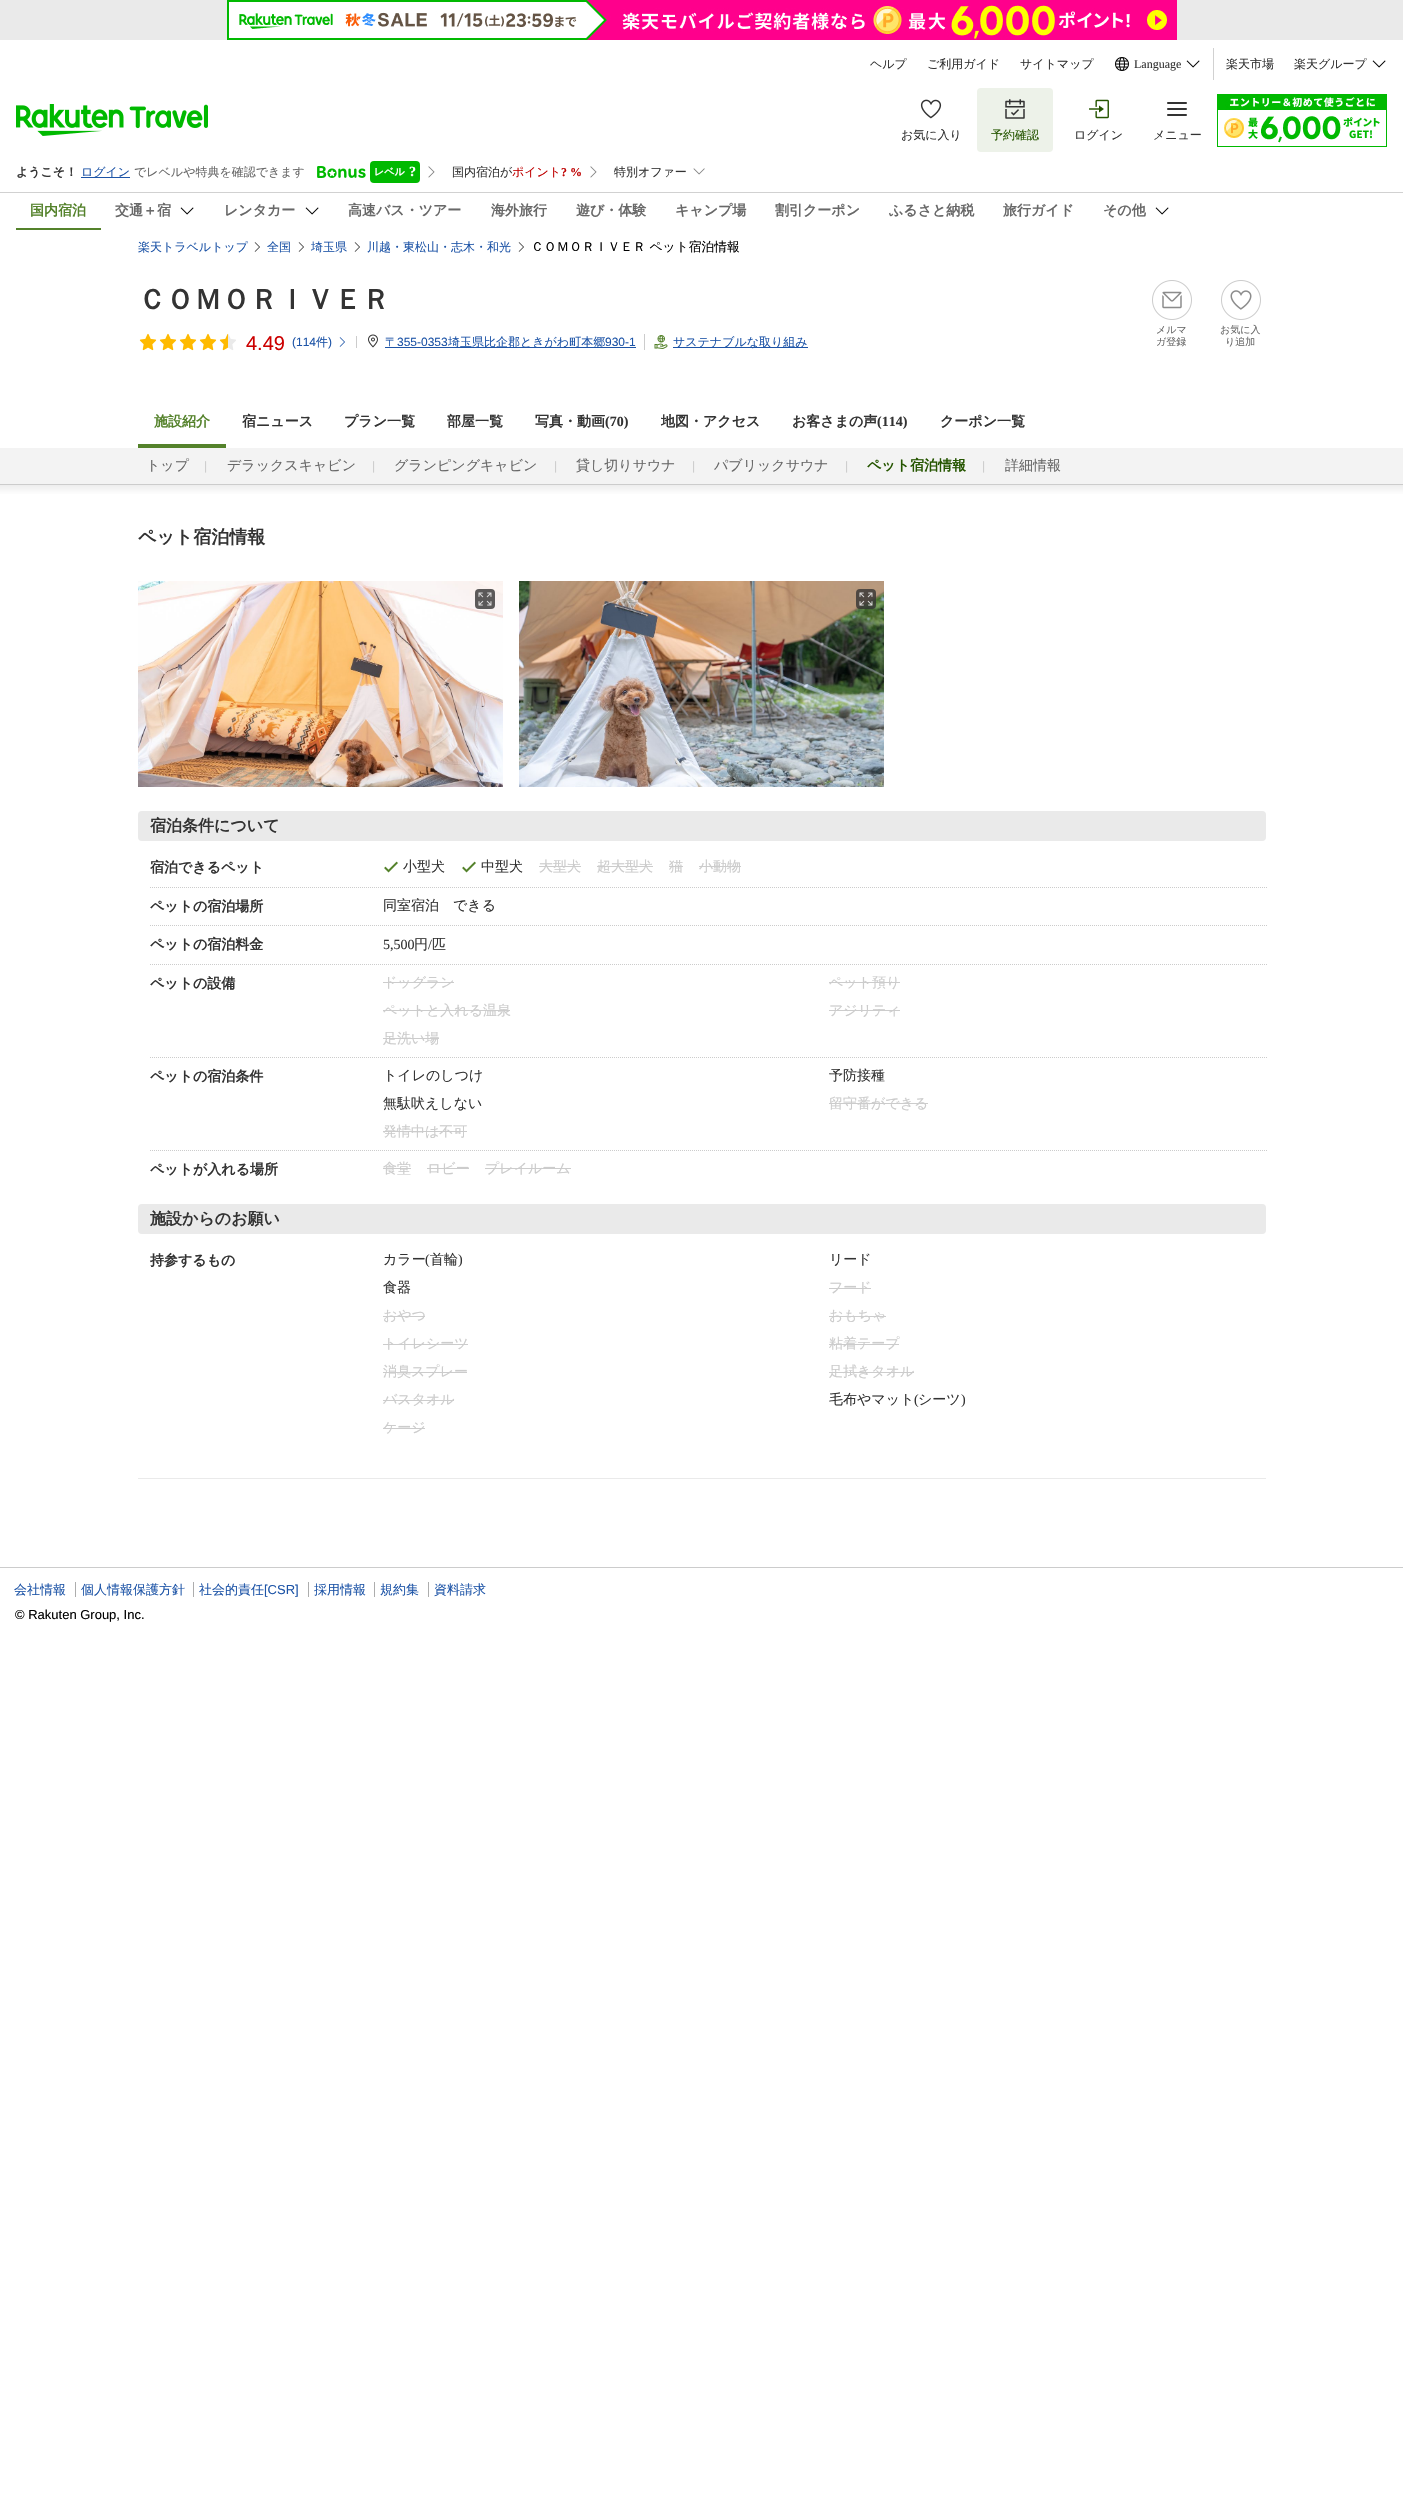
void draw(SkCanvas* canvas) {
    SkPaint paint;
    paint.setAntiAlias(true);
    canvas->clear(0xFFFFFFFF);
    paint.setColor(0xFFEAEAEA);
    canvas->drawRect(SkRect::MakeXYWH(0, 0, 1403, 40), paint);
    canvas->drawImageRect(SkImages::DeferredFromEncodedData(SkData::MakeFromFileName("img1.png")), SkRect::MakeXYWH(227, 0, 950, 40), SkSamplingOptions());
    SkFont font1(fontMgr->matchFamilyStyle("WenQuanYi Zen Hei", SkFontStyle(500, SkFontStyle::kNormal_Width, SkFontStyle::kUpright_Slant)), 12);
    font1.setSubpixel(true);
    paint.setColor(0xFF333333);
    canvas->drawString("ヘルプ", 870, 68, font1, paint);
    canvas->drawString("ご利用ガイド", 927, 68, font1, paint);
    canvas->drawString("サイトマップ", 1020, 68, font1, paint);
    canvas->drawImageRect(SkImages::DeferredFromEncodedData(SkData::MakeFromFileName("img2.png")), SkRect::MakeXYWH(1115, 57, 14, 14), SkSamplingOptions());
    SkFont font2(fontMgr->matchFamilyStyle("Liberation Serif", SkFontStyle::Normal()), 12);
    font2.setSubpixel(true);
    canvas->drawString("Language", 1134, 68, font2, paint);
    canvas->drawImageRect(SkImages::DeferredFromEncodedData(SkData::MakeFromFileName("img3.png")), SkRect::MakeXYWH(1186, 60, 14, 8), SkSamplingOptions());
    paint.setColor(0xFFD1D1D1);
    canvas->drawRect(SkRect::MakeXYWH(1213, 48, 1, 32), paint);
    paint.setColor(0xFF333333);
    canvas->drawString("楽天市場", 1226, 68, font1, paint);
    canvas->drawString("楽天グループ", 1294, 68, font1, paint);
    canvas->drawImageRect(SkImages::DeferredFromEncodedData(SkData::MakeFromFileName("img3.png")), SkRect::MakeXYWH(1372, 60, 14, 8), SkSamplingOptions());
    canvas->drawImageRect(SkImages::DeferredFromEncodedData(SkData::MakeFromFileName("img4.png")), SkRect::MakeXYWH(16, 104, 192, 32), SkSamplingOptions());
    canvas->drawImageRect(SkImages::DeferredFromEncodedData(SkData::MakeFromFileName("img5.png")), SkRect::MakeXYWH(920, 99, 22, 20), SkSamplingOptions());
    canvas->drawString("お気に入り", 901, 139, font1, paint);
    paint.setColor(0xFFEDF2E9);
    canvas->drawRoundRect(SkRect::MakeXYWH(977, 88, 76, 64), 4, 4, paint);
    canvas->drawImageRect(SkImages::DeferredFromEncodedData(SkData::MakeFromFileName("img6.png")), SkRect::MakeXYWH(1005, 99, 20, 20), SkSamplingOptions());
    paint.setColor(0xFF255500);
    canvas->drawString("予約確認", 991, 139, font1, paint);
    canvas->drawImageRect(SkImages::DeferredFromEncodedData(SkData::MakeFromFileName("img7.png")), SkRect::MakeXYWH(1089, 99, 20, 20), SkSamplingOptions());
    paint.setColor(0xFF333333);
    canvas->drawString("ログイン", 1074, 139, font1, paint);
    canvas->drawImageRect(SkImages::DeferredFromEncodedData(SkData::MakeFromFileName("img8.png")), SkRect::MakeXYWH(1167, 102, 20, 14), SkSamplingOptions());
    canvas->drawString("メニュー", 1153, 139, font1, paint);
    canvas->drawImageRect(SkImages::DeferredFromEncodedData(SkData::MakeFromFileName("img9.png")), SkRect::MakeXYWH(1217, 94, 170, 53), SkSamplingOptions());
    SkFont font3(fontMgr->matchFamilyStyle("WenQuanYi Zen Hei", SkFontStyle::Bold()), 12);
    font3.setSubpixel(true);
    canvas->drawString("ようこそ！", 16, 176, font3, paint);
    paint.setColor(0xFF1D54A7);
    canvas->drawRect(SkRect::MakeXYWH(81, 177, 49, 1), paint);
    canvas->drawString("ログイン", 81, 176, font1, paint);
    paint.setColor(0xFF686868);
    canvas->drawString("でレベルや特典を確認できます", 134, 176, font1, paint);
    canvas->drawImageRect(SkImages::DeferredFromEncodedData(SkData::MakeFromFileName("img10.png")), SkRect::MakeXYWH(317, 166, 49, 12), SkSamplingOptions());
    paint.setColor(0xFF00B900);
    canvas->drawRoundRect(SkRect::MakeXYWH(370, 161, 50, 22), 4, 4, paint);
    SkFont font4(fontMgr->matchFamilyStyle("WenQuanYi Zen Hei", SkFontStyle::Bold()), 10);
    font4.setSubpixel(true);
    paint.setColor(0xFFFFFFFF);
    canvas->drawString("レベル", 374, 175, font4, paint);
    SkFont font5(fontMgr->matchFamilyStyle("Liberation Serif", SkFontStyle::Bold()), 14);
    font5.setSubpixel(true);
    canvas->drawString("?", 409, 176, font5, paint);
    canvas->drawImageRect(SkImages::DeferredFromEncodedData(SkData::MakeFromFileName("img11.png")), SkRect::MakeXYWH(428, 166, 7, 12), SkSamplingOptions());
    paint.setColor(0xFF333333);
    canvas->drawString("国内宿泊が", 452, 176, font1, paint);
    paint.setColor(0xFFBF0000);
    canvas->drawString("ポイント", 512, 176, font1, paint);
    SkFont font6(fontMgr->matchFamilyStyle("Liberation Serif", SkFontStyle::Bold()), 12);
    font6.setSubpixel(true);
    canvas->drawString("? %", 561, 176, font6, paint);
    canvas->drawImageRect(SkImages::DeferredFromEncodedData(SkData::MakeFromFileName("img11.png")), SkRect::MakeXYWH(590, 166, 7, 12), SkSamplingOptions());
    paint.setColor(0xFF333333);
    canvas->drawString("特別オファー", 614, 176, font1, paint);
    canvas->drawImageRect(SkImages::DeferredFromEncodedData(SkData::MakeFromFileName("img12.png")), SkRect::MakeXYWH(693, 168, 12, 7), SkSamplingOptions());
    paint.setColor(0xFFD1D1D1);
    canvas->drawRect(SkRect::MakeXYWH(0, 192, 1403, 1), paint);
    paint.setColor(0xFF54822B);
    canvas->drawRect(SkRect::MakeXYWH(16, 228, 85, 2), paint);
    SkFont font7(fontMgr->matchFamilyStyle("WenQuanYi Zen Hei", SkFontStyle::Bold()), 14);
    font7.setSubpixel(true);
    canvas->drawString("国内宿泊", 30, 215, font7, paint);
    paint.setColor(0xFF686868);
    canvas->drawString("交通＋宿", 115, 215, font7, paint);
    canvas->drawImageRect(SkImages::DeferredFromEncodedData(SkData::MakeFromFileName("img3.png")), SkRect::MakeXYWH(180, 207, 14, 8), SkSamplingOptions());
    canvas->drawString("レンタカー", 224, 215, font7, paint);
    canvas->drawImageRect(SkImages::DeferredFromEncodedData(SkData::MakeFromFileName("img3.png")), SkRect::MakeXYWH(305, 207, 14, 8), SkSamplingOptions());
    canvas->drawString("高速バス・ツアー", 348, 215, font7, paint);
    canvas->drawString("海外旅行", 491, 215, font7, paint);
    canvas->drawString("遊び・体験", 576, 215, font7, paint);
    canvas->drawString("キャンプ場", 675, 215, font7, paint);
    canvas->drawString("割引クーポン", 775, 215, font7, paint);
    canvas->drawString("ふるさと納税", 889, 215, font7, paint);
    canvas->drawString("旅行ガイド", 1003, 215, font7, paint);
    canvas->drawString("その他", 1103, 215, font7, paint);
    canvas->drawImageRect(SkImages::DeferredFromEncodedData(SkData::MakeFromFileName("img3.png")), SkRect::MakeXYWH(1155, 207, 14, 8), SkSamplingOptions());
    paint.setColor(0xFF1D54A7);
    canvas->drawString("楽天トラベルトップ", 138, 251, font1, paint);
    canvas->drawImageRect(SkImages::DeferredFromEncodedData(SkData::MakeFromFileName("img13.png")), SkRect::MakeXYWH(254, 242, 6, 10), SkSamplingOptions());
    canvas->drawString("全国", 267, 251, font1, paint);
    canvas->drawImageRect(SkImages::DeferredFromEncodedData(SkData::MakeFromFileName("img13.png")), SkRect::MakeXYWH(298, 242, 6, 10), SkSamplingOptions());
    canvas->drawString("埼玉県", 311, 251, font1, paint);
    canvas->drawImageRect(SkImages::DeferredFromEncodedData(SkData::MakeFromFileName("img13.png")), SkRect::MakeXYWH(354, 242, 6, 10), SkSamplingOptions());
    canvas->drawString("川越・東松山・志木・和光", 367, 251, font1, paint);
    canvas->drawImageRect(SkImages::DeferredFromEncodedData(SkData::MakeFromFileName("img13.png")), SkRect::MakeXYWH(518, 242, 6, 10), SkSamplingOptions());
    SkFont font8(fontMgr->matchFamilyStyle("WenQuanYi Zen Hei", SkFontStyle(500, SkFontStyle::kNormal_Width, SkFontStyle::kUpright_Slant)), 12.75f);
    font8.setSubpixel(true);
    paint.setColor(0xFF000000);
    canvas->drawString("ＣＯＭＯＲＩＶＥＲ ペット宿泊情報", 531, 251, font8, paint);
    SkFont font9(fontMgr->matchFamilyStyle("WenQuanYi Zen Hei", SkFontStyle::Bold()), 28);
    font9.setSubpixel(true);
    paint.setColor(0xFF333333);
    canvas->drawString("ＣＯＭＯＲＩＶＥＲ", 138, 309, font9, paint);
    canvas->drawImageRect(SkImages::DeferredFromEncodedData(SkData::MakeFromFileName("img14.png")), SkRect::MakeXYWH(139, 333, 18, 18), SkSamplingOptions());
    canvas->drawImageRect(SkImages::DeferredFromEncodedData(SkData::MakeFromFileName("img14.png")), SkRect::MakeXYWH(159, 333, 18, 18), SkSamplingOptions());
    canvas->drawImageRect(SkImages::DeferredFromEncodedData(SkData::MakeFromFileName("img14.png")), SkRect::MakeXYWH(179, 333, 18, 18), SkSamplingOptions());
    canvas->drawImageRect(SkImages::DeferredFromEncodedData(SkData::MakeFromFileName("img14.png")), SkRect::MakeXYWH(199, 333, 18, 18), SkSamplingOptions());
    canvas->drawImageRect(SkImages::DeferredFromEncodedData(SkData::MakeFromFileName("img15.png")), SkRect::MakeXYWH(219, 333, 17, 18), SkSamplingOptions());
    SkFont font10(fontMgr->matchFamilyStyle("Liberation Sans", SkFontStyle::Normal()), 20);
    font10.setSubpixel(true);
    paint.setColor(0xFFCC0000);
    canvas->drawString("4.49", 246, 350, font10, paint);
    paint.setColor(0xFFCCCCCC);
    canvas->drawRect(SkRect::MakeXYWH(356, 336, 1, 12), paint);
    SkFont font11(fontMgr->matchFamilyStyle("Liberation Sans", SkFontStyle::Normal()), 12);
    font11.setSubpixel(true);
    paint.setColor(0xFF1D54A7);
    canvas->drawString("(114", 292, 346, font11, paint);
    canvas->drawString("件", 316, 346, font1, paint);
    canvas->drawString(")", 328, 346, font11, paint);
    canvas->drawImageRect(SkImages::DeferredFromEncodedData(SkData::MakeFromFileName("img16.png")), SkRect::MakeXYWH(339, 337, 6, 10), SkSamplingOptions());
    paint.setColor(0xFFCCCCCC);
    canvas->drawRect(SkRect::MakeXYWH(644, 334, 1, 16), paint);
    canvas->drawImageRect(SkImages::DeferredFromEncodedData(SkData::MakeFromFileName("img17.png")), SkRect::MakeXYWH(368, 334, 10, 14), SkSamplingOptions());
    paint.setColor(0xFF1D54A7);
    canvas->drawString("〒", 385, 346, font1, paint);
    canvas->drawString("355-0353", 397, 346, font11, paint);
    canvas->drawRect(SkRect::MakeXYWH(385, 347, 251, 1), paint);
    canvas->drawString("埼玉県比企郡ときがわ町本郷", 448, 346, font1, paint);
    canvas->drawString("930-1", 605, 346, font11, paint);
    canvas->drawImageRect(SkImages::DeferredFromEncodedData(SkData::MakeFromFileName("img18.png")), SkRect::MakeXYWH(654, 335, 14, 14), SkSamplingOptions());
    canvas->drawRect(SkRect::MakeXYWH(673, 347, 135, 1), paint);
    canvas->drawString("サステナブルな取り組み", 673, 346, font1, paint);
    canvas->drawImageRect(SkImages::DeferredFromEncodedData(SkData::MakeFromFileName("img19.png")), SkRect::MakeXYWH(1152, 280, 40, 40), SkSamplingOptions());
    SkFont font12(fontMgr->matchFamilyStyle("WenQuanYi Zen Hei", SkFontStyle(500, SkFontStyle::kNormal_Width, SkFontStyle::kUpright_Slant)), 10);
    font12.setSubpixel(true);
    paint.setColor(0xFF686868);
    canvas->drawString("メルマ", 1156, 333, font12, paint);
    canvas->drawString("ガ登録", 1156, 345, font12, paint);
    canvas->drawImageRect(SkImages::DeferredFromEncodedData(SkData::MakeFromFileName("img20.png")), SkRect::MakeXYWH(1221, 280, 40, 40), SkSamplingOptions());
    canvas->drawString("お気に入", 1220, 333, font12, paint);
    canvas->drawString("り追加", 1225, 345, font12, paint);
    paint.setColor(0xFF54822B);
    canvas->drawRect(SkRect::MakeXYWH(138, 444, 88, 4), paint);
    canvas->drawString("施設紹介", 154, 426, font7, paint);
    paint.setColor(0xFF333333);
    canvas->drawString("宿ニュース", 242, 426, font7, paint);
    canvas->drawString("プラン一覧", 344, 426, font7, paint);
    canvas->drawString("部屋一覧", 447, 426, font7, paint);
    canvas->drawString("写真・動画", 535, 426, font7, paint);
    canvas->drawString("(70)", 605, 426, font5, paint);
    canvas->drawString("地図・アクセス", 661, 426, font7, paint);
    canvas->drawString("お客さまの声", 792, 426, font7, paint);
    canvas->drawString("(114)", 877, 426, font5, paint);
    canvas->drawString("クーポン一覧", 940, 426, font7, paint);
    {
        const SkColor colors[] = {0xFFFFFFFF, 0xFFEDEDED};
        const float stops[] = {0, 1};
        const SkPoint ends[] = {{702, 495}, {702, 485}};
        paint.setShader(SkGradientShader::MakeLinear(ends, colors, stops, 2, SkTileMode::kClamp));
        paint.setAlpha(255);
    }
    canvas->drawRect(SkRect::MakeXYWH(0, 485, 1403, 9), paint);
    paint.setShader(nullptr);
    paint.setColor(0xFFF3F3F3);
    canvas->drawRect(SkRect::MakeXYWH(0, 448, 1403, 36), paint);
    paint.setColor(0xFFCCCCCC);
    canvas->drawRect(SkRect::MakeXYWH(0, 484, 1403, 1), paint);
    SkFont font13(fontMgr->matchFamilyStyle("WenQuanYi Zen Hei", SkFontStyle(500, SkFontStyle::kNormal_Width, SkFontStyle::kUpright_Slant)), 14);
    font13.setSubpixel(true);
    paint.setColor(0xFF686868);
    canvas->drawString("トップ", 146, 470, font13, paint);
    paint.setColor(0xFFCCCCCC);
    canvas->drawString("|", 204, 470, font11, paint);
    paint.setColor(0xFF686868);
    canvas->drawString("デラックスキャビン", 227, 470, font13, paint);
    paint.setColor(0xFFCCCCCC);
    canvas->drawString("|", 372, 470, font11, paint);
    paint.setColor(0xFF686868);
    canvas->drawString("グランピングキャビン", 394, 470, font13, paint);
    paint.setColor(0xFFCCCCCC);
    canvas->drawString("|", 554, 470, font11, paint);
    paint.setColor(0xFF686868);
    canvas->drawString("貸し切りサウナ", 576, 470, font13, paint);
    paint.setColor(0xFFCCCCCC);
    canvas->drawString("|", 692, 470, font11, paint);
    paint.setColor(0xFF686868);
    canvas->drawString("パブリックサウナ", 714, 470, font13, paint);
    paint.setColor(0xFFCCCCCC);
    canvas->drawString("|", 845, 470, font11, paint);
    paint.setColor(0xFF255500);
    canvas->drawString("ペット宿泊情報", 867, 470, font7, paint);
    paint.setColor(0xFFCCCCCC);
    canvas->drawString("|", 982, 470, font11, paint);
    paint.setColor(0xFF686868);
    canvas->drawString("詳細情報", 1005, 470, font13, paint);
    SkFont font14(fontMgr->matchFamilyStyle("WenQuanYi Zen Hei", SkFontStyle::Bold()), 18);
    font14.setSubpixel(true);
    paint.setColor(0xFF333333);
    canvas->drawString("ペット宿泊情報", 138, 543, font14, paint);
    canvas->drawImageRect(SkImages::DeferredFromEncodedData(SkData::MakeFromFileName("img21.png")), SkRect::MakeXYWH(138, 581, 365, 206), SkSamplingOptions());
    paint.setColor(0xCC333333);
    canvas->drawRoundRect(SkRect::MakeXYWH(475, 589, 20, 20), 4, 4, paint);
    canvas->drawImageRect(SkImages::DeferredFromEncodedData(SkData::MakeFromFileName("img22.png")), SkRect::MakeXYWH(478, 592, 14, 14), SkSamplingOptions());
    canvas->drawImageRect(SkImages::DeferredFromEncodedData(SkData::MakeFromFileName("img23.png")), SkRect::MakeXYWH(519, 581, 365, 206), SkSamplingOptions());
    canvas->drawRoundRect(SkRect::MakeXYWH(856, 589, 20, 20), 4, 4, paint);
    canvas->drawImageRect(SkImages::DeferredFromEncodedData(SkData::MakeFromFileName("img24.png")), SkRect::MakeXYWH(859, 592, 14, 14), SkSamplingOptions());
    paint.setColor(0xFFEAEAEA);
    canvas->drawRect(SkRect::MakeXYWH(138, 1478, 1128, 1), paint);
    canvas->drawRoundRect(SkRect::MakeXYWH(138, 811, 1128, 30), 4, 4, paint);
    SkFont font15(fontMgr->matchFamilyStyle("WenQuanYi Zen Hei", SkFontStyle::Bold()), 16);
    font15.setSubpixel(true);
    paint.setColor(0xFF333333);
    canvas->drawString("宿泊条件について", 150, 831, font15, paint);
    paint.setStyle(SkPaint::kStroke_Style);
    paint.setStrokeWidth(1);
    paint.setColor(0xFFCCCCCC);
    paint.setPathEffect(SkDashPathEffect::Make({{1, 1}}, 0));
    canvas->drawPath(SkPathBuilder().moveTo(150, 887.5f).lineTo(1267, 887.5f).detach(), paint);
    paint.setPathEffect(nullptr);
    paint.setStyle(SkPaint::kFill_Style);
    paint.setColor(0xFF333333);
    canvas->drawString("宿泊できるペット", 150, 872, font7, paint);
    canvas->drawImageRect(SkImages::DeferredFromEncodedData(SkData::MakeFromFileName("img25.png")), SkRect::MakeXYWH(384, 861, 14, 12), SkSamplingOptions());
    canvas->drawString("小型犬", 403, 871, font13, paint);
    canvas->drawImageRect(SkImages::DeferredFromEncodedData(SkData::MakeFromFileName("img25.png")), SkRect::MakeXYWH(462, 861, 14, 12), SkSamplingOptions());
    canvas->drawString("中型犬", 481, 871, font13, paint);
    paint.setColor(0xFFCCCCCC);
    canvas->drawString("大型犬", 539, 871, font13, paint);
    canvas->drawRect(SkRect::MakeXYWH(539, 866, 42, 1), paint);
    canvas->drawString("超大型犬", 597, 871, font13, paint);
    canvas->drawRect(SkRect::MakeXYWH(597, 866, 56, 1), paint);
    canvas->drawString("猫", 669, 871, font13, paint);
    canvas->drawRect(SkRect::MakeXYWH(669, 866, 14, 1), paint);
    canvas->drawString("小動物", 699, 871, font13, paint);
    canvas->drawRect(SkRect::MakeXYWH(699, 866, 42, 1), paint);
    paint.setStyle(SkPaint::kStroke_Style);
    paint.setPathEffect(SkDashPathEffect::Make({{1, 1}}, 0));
    canvas->drawPath(SkPathBuilder().moveTo(150, 925.5f).lineTo(1267, 925.5f).detach(), paint);
    paint.setPathEffect(nullptr);
    paint.setStyle(SkPaint::kFill_Style);
    paint.setColor(0xFF333333);
    canvas->drawString("ペットの宿泊場所", 150, 911, font7, paint);
    canvas->drawString("同室宿泊　できる", 383, 910, font13, paint);
    paint.setStyle(SkPaint::kStroke_Style);
    paint.setColor(0xFFCCCCCC);
    paint.setPathEffect(SkDashPathEffect::Make({{1, 1}}, 0));
    canvas->drawPath(SkPathBuilder().moveTo(150, 964.5f).lineTo(1267, 964.5f).detach(), paint);
    paint.setPathEffect(nullptr);
    paint.setStyle(SkPaint::kFill_Style);
    paint.setColor(0xFF333333);
    canvas->drawString("ペットの宿泊料金", 150, 949, font7, paint);
    SkFont font16(fontMgr->matchFamilyStyle("Liberation Serif", SkFontStyle::Normal()), 14);
    font16.setSubpixel(true);
    canvas->drawString("5,500", 383, 949, font16, paint);
    canvas->drawString("円", 414, 949, font13, paint);
    canvas->drawString("/", 428, 949, font16, paint);
    canvas->drawString("匹", 432, 949, font13, paint);
    paint.setStyle(SkPaint::kStroke_Style);
    paint.setColor(0xFFCCCCCC);
    paint.setPathEffect(SkDashPathEffect::Make({{1, 1}}, 0));
    canvas->drawPath(SkPathBuilder().moveTo(150, 1057.5f).lineTo(1267, 1057.5f).detach(), paint);
    paint.setPathEffect(nullptr);
    paint.setStyle(SkPaint::kFill_Style);
    paint.setColor(0xFF333333);
    canvas->drawString("ペットの設備", 150, 988, font7, paint);
    paint.setColor(0xFFCCCCCC);
    canvas->drawString("ドッグラン", 383, 987, font13, paint);
    canvas->drawRect(SkRect::MakeXYWH(383, 982, 71, 1), paint);
    canvas->drawString("ペット預り", 829, 987, font13, paint);
    canvas->drawRect(SkRect::MakeXYWH(829, 982, 71, 1), paint);
    canvas->drawString("ペットと入れる温泉", 383, 1015, font13, paint);
    canvas->drawRect(SkRect::MakeXYWH(383, 1010, 127, 1), paint);
    canvas->drawString("アジリティ", 829, 1015, font13, paint);
    canvas->drawRect(SkRect::MakeXYWH(829, 1010, 71, 1), paint);
    canvas->drawString("足洗い場", 383, 1043, font13, paint);
    canvas->drawRect(SkRect::MakeXYWH(383, 1038, 56, 1), paint);
    paint.setStyle(SkPaint::kStroke_Style);
    paint.setPathEffect(SkDashPathEffect::Make({{1, 1}}, 0));
    canvas->drawPath(SkPathBuilder().moveTo(150, 1150.5f).lineTo(1267, 1150.5f).detach(), paint);
    paint.setPathEffect(nullptr);
    paint.setStyle(SkPaint::kFill_Style);
    paint.setColor(0xFF333333);
    canvas->drawString("ペットの宿泊条件", 150, 1081, font7, paint);
    canvas->drawString("トイレのしつけ", 383, 1080, font13, paint);
    canvas->drawString("予防接種", 829, 1080, font13, paint);
    canvas->drawString("無駄吠えしない", 383, 1108, font13, paint);
    paint.setColor(0xFFCCCCCC);
    canvas->drawString("留守番ができる", 829, 1108, font13, paint);
    canvas->drawRect(SkRect::MakeXYWH(829, 1103, 99, 1), paint);
    canvas->drawString("発情中は不可", 383, 1136, font13, paint);
    canvas->drawRect(SkRect::MakeXYWH(383, 1131, 84, 1), paint);
    paint.setColor(0xFF333333);
    canvas->drawString("ペットが入れる場所", 150, 1174, font7, paint);
    paint.setColor(0xFFCCCCCC);
    canvas->drawString("食堂", 383, 1173, font13, paint);
    canvas->drawRect(SkRect::MakeXYWH(383, 1168, 28, 1), paint);
    canvas->drawString("ロビー", 427, 1173, font13, paint);
    canvas->drawRect(SkRect::MakeXYWH(427, 1168, 42, 1), paint);
    canvas->drawString("プレイルーム", 485, 1173, font13, paint);
    canvas->drawRect(SkRect::MakeXYWH(485, 1168, 86, 1), paint);
    paint.setColor(0xFFEAEAEA);
    canvas->drawRoundRect(SkRect::MakeXYWH(138, 1204, 1128, 30), 4, 4, paint);
    paint.setColor(0xFF333333);
    canvas->drawString("施設からのお願い", 150, 1224, font15, paint);
    canvas->drawString("持参するもの", 150, 1265, font7, paint);
    canvas->drawString("カラー", 383, 1264, font13, paint);
    canvas->drawString("(", 425, 1264, font16, paint);
    canvas->drawString("首輪", 430, 1264, font13, paint);
    canvas->drawString(")", 458, 1264, font16, paint);
    canvas->drawString("リード", 829, 1264, font13, paint);
    canvas->drawString("食器", 383, 1292, font13, paint);
    paint.setColor(0xFFCCCCCC);
    canvas->drawString("フード", 829, 1292, font13, paint);
    canvas->drawRect(SkRect::MakeXYWH(829, 1288, 42, 1), paint);
    canvas->drawString("おやつ", 383, 1320, font13, paint);
    canvas->drawRect(SkRect::MakeXYWH(383, 1316, 42, 1), paint);
    canvas->drawString("おもちゃ", 829, 1320, font13, paint);
    canvas->drawRect(SkRect::MakeXYWH(829, 1316, 57, 1), paint);
    canvas->drawString("トイレシーツ", 383, 1348, font13, paint);
    canvas->drawRect(SkRect::MakeXYWH(383, 1344, 85, 1), paint);
    canvas->drawString("粘着テープ", 829, 1348, font13, paint);
    canvas->drawRect(SkRect::MakeXYWH(829, 1344, 70, 1), paint);
    canvas->drawString("消臭スプレー", 383, 1376, font13, paint);
    canvas->drawRect(SkRect::MakeXYWH(383, 1372, 84, 1), paint);
    canvas->drawString("足拭きタオル", 829, 1376, font13, paint);
    canvas->drawRect(SkRect::MakeXYWH(829, 1372, 85, 1), paint);
    canvas->drawString("バスタオル", 383, 1404, font13, paint);
    canvas->drawRect(SkRect::MakeXYWH(383, 1400, 71, 1), paint);
    paint.setColor(0xFF333333);
    canvas->drawString("毛布やマット", 829, 1404, font13, paint);
    canvas->drawString("(", 914, 1404, font16, paint);
    canvas->drawString("シーツ", 918, 1404, font13, paint);
    canvas->drawString(")", 961, 1404, font16, paint);
    paint.setColor(0xFFCCCCCC);
    canvas->drawString("ケージ", 383, 1432, font13, paint);
    canvas->drawRect(SkRect::MakeXYWH(383, 1428, 42, 1), paint);
    canvas->drawRect(SkRect::MakeXYWH(0, 1567, 1403, 1), paint);
    SkFont font17(fontMgr->matchFamilyStyle("WenQuanYi Zen Hei", SkFontStyle(500, SkFontStyle::kNormal_Width, SkFontStyle::kUpright_Slant)), 13);
    font17.setSubpixel(true);
    paint.setColor(0xFF1D54A7);
    canvas->drawString("会社情報", 14, 1594, font17, paint);
    canvas->drawString("個人情報保護方針", 81, 1594, font17, paint);
    paint.setColor(0xFFADADAD);
    canvas->drawRect(SkRect::MakeXYWH(75, 1582, 1, 15), paint);
    paint.setColor(0xFF1D54A7);
    canvas->drawString("社会的責任", 199, 1594, font17, paint);
    paint.setColor(0xFFADADAD);
    canvas->drawRect(SkRect::MakeXYWH(193, 1582, 1, 15), paint);
    SkFont font18(fontMgr->matchFamilyStyle("Liberation Sans", SkFontStyle::Normal()), 13);
    font18.setSubpixel(true);
    paint.setColor(0xFF1D54A7);
    canvas->drawString("[CSR]", 264, 1594, font18, paint);
    canvas->drawString("採用情報", 314, 1594, font17, paint);
    paint.setColor(0xFFADADAD);
    canvas->drawRect(SkRect::MakeXYWH(308, 1582, 1, 15), paint);
    paint.setColor(0xFF1D54A7);
    canvas->drawString("規約集", 380, 1594, font17, paint);
    paint.setColor(0xFFADADAD);
    canvas->drawRect(SkRect::MakeXYWH(374, 1582, 1, 15), paint);
    paint.setColor(0xFF1D54A7);
    canvas->drawString("資料請求", 434, 1594, font17, paint);
    paint.setColor(0xFFADADAD);
    canvas->drawRect(SkRect::MakeXYWH(428, 1582, 1, 15), paint);
    paint.setColor(0xFF000000);
    canvas->drawString("© Rakuten Group, Inc.", 15, 1619, font18, paint);
}
